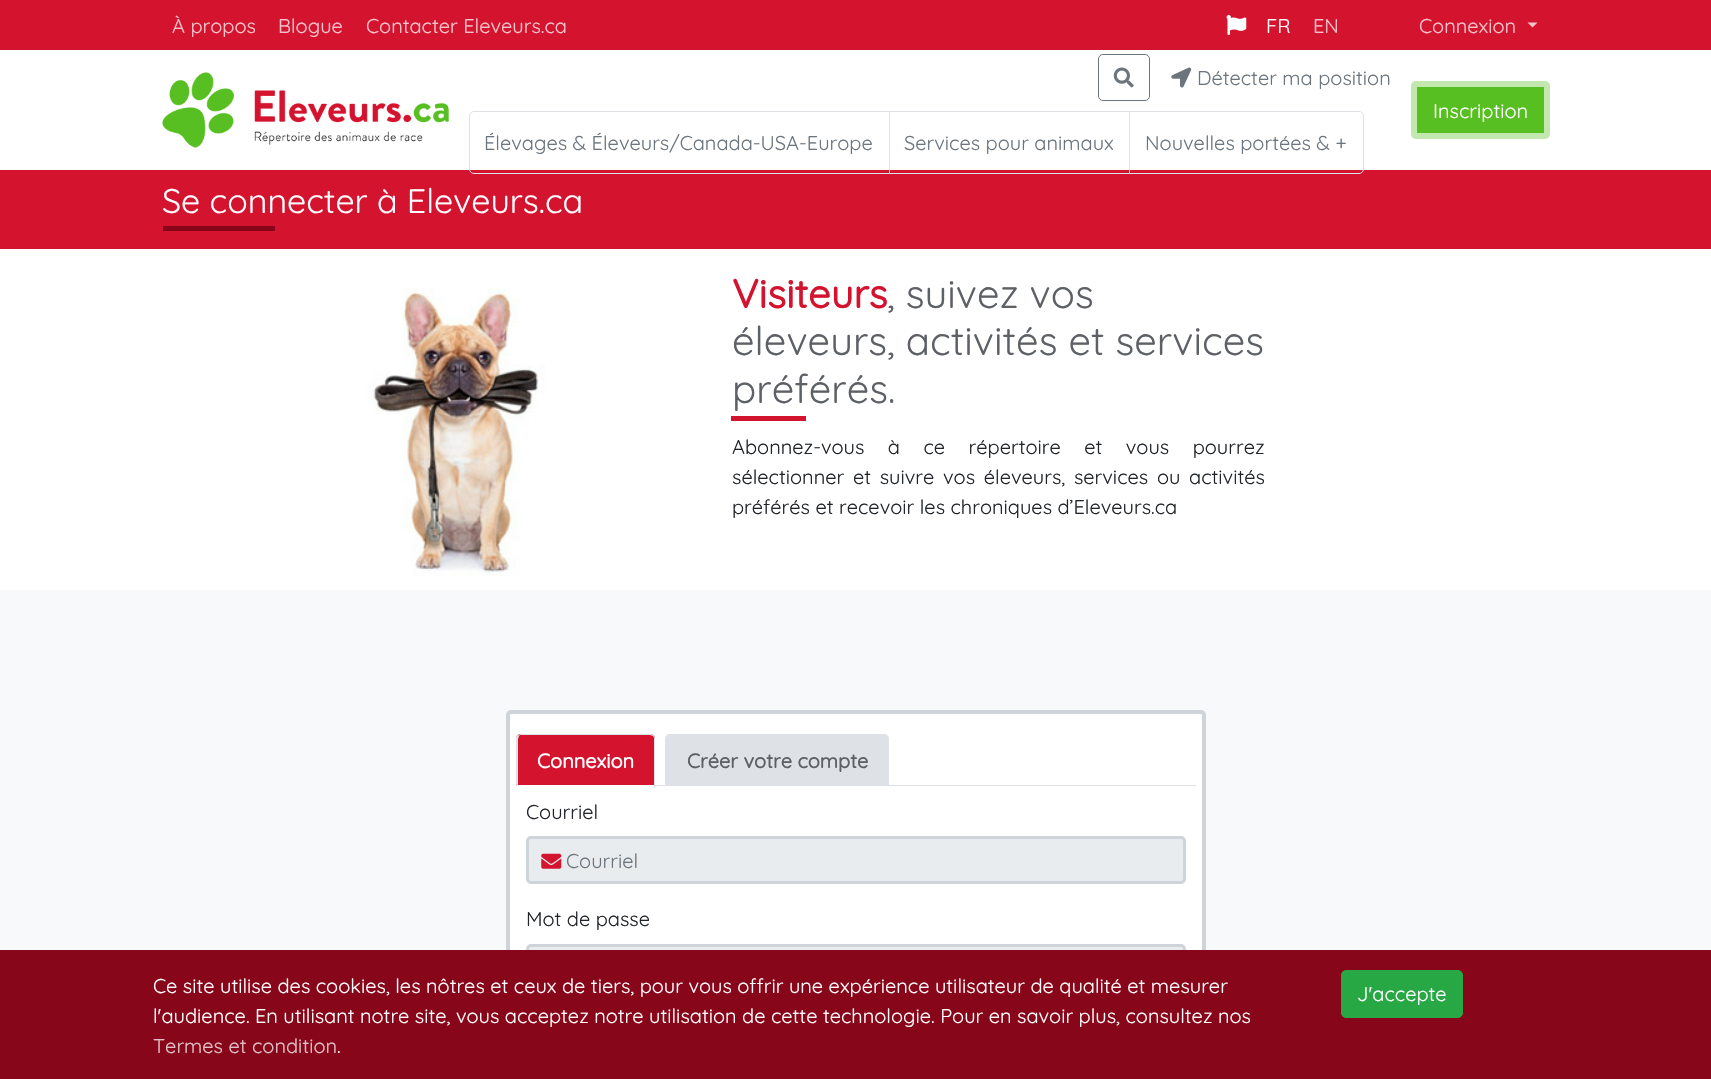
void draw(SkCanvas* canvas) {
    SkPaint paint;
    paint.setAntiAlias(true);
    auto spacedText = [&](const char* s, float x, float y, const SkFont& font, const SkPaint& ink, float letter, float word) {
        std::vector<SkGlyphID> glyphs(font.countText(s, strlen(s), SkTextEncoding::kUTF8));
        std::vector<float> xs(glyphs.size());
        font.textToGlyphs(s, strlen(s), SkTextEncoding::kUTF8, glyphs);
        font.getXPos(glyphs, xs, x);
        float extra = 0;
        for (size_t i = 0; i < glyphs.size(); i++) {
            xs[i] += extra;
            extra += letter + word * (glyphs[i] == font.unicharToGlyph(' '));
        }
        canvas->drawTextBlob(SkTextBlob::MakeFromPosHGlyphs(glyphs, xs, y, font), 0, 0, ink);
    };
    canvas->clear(0xFFFFFFFF);
    paint.setColor(0xFFD4132F);
    canvas->drawRect(SkRect::MakeXYWH(0, 0, 1711, 50), paint);
    SkFont font1(fontMgr->matchFamilyStyle("Quicksand", SkFontStyle(300, SkFontStyle::kNormal_Width, SkFontStyle::kUpright_Slant)), 20);
    font1.setSubpixel(true);
    paint.setColor(0xFFF4C4CB);
    canvas->drawString("À propos", 172, 33, font1, paint);
    canvas->drawString("Blogue", 278, 33, font1, paint);
    canvas->drawString("Contacter Eleveurs.ca", 366, 33, font1, paint);
    canvas->drawImageRect(SkImages::DeferredFromEncodedData(SkData::MakeFromFileName("img1.png")), SkRect::MakeXYWH(1226, 15, 21, 20), SkSamplingOptions());
    paint.setColor(0xFFFFFFFF);
    canvas->drawString("FR", 1266, 33, font1, paint);
    paint.setColor(0xFFF4C4CB);
    canvas->drawString("EN", 1313, 33, font1, paint);
    canvas->drawString("Connexion", 1419, 33, font1, paint);
    canvas->drawPath(SkPathBuilder().moveTo(1527.5f, 22.5f).lineTo(1537.5f, 22.5f).lineTo(1532.5f, 27.5f).close().detach(), paint);
    paint.setColor(0xFFD4132F);
    canvas->drawRect(SkRect::MakeXYWH(0, 170, 1711, 79), paint);
    canvas->drawImageRect(SkImages::DeferredFromEncodedData(SkData::MakeFromFileName("img2.png")), SkRect::MakeXYWH(162, 72, 287, 76), SkSamplingOptions());
    paint.setStyle(SkPaint::kStroke_Style);
    paint.setStrokeWidth(1);
    paint.setColor(0xFF6C757D);
    canvas->drawRoundRect(SkRect::MakeXYWH(1098.5f, 54.5f, 51, 46), 4.5f, 4.5f, paint);
    canvas->drawImageRect(SkImages::DeferredFromEncodedData(SkData::MakeFromFileName("img3.png")), SkRect::MakeXYWH(1113, 67, 21, 21), SkSamplingOptions());
    canvas->drawImageRect(SkImages::DeferredFromEncodedData(SkData::MakeFromFileName("img4.png")), SkRect::MakeXYWH(1171, 67, 21, 21), SkSamplingOptions());
    paint.setStyle(SkPaint::kFill_Style);
    canvas->drawString("Détecter ma position", 1197, 85, font1, paint);
    paint.setStyle(SkPaint::kStroke_Style);
    paint.setColor(0xFFDEE2E6);
    canvas->drawPath(SkPathBuilder().moveTo(474, 111.5f).lineTo(889.5f, 111.5f).lineTo(889.5f, 173.5f).lineTo(474, 173.5f).cubicTo(471.5f, 173.5f, 469.5f, 171.5f, 469.5f, 169).lineTo(469.5f, 116).cubicTo(469.5f, 113.5f, 471.5f, 111.5f, 474, 111.5f).close().detach(), paint);
    paint.setStyle(SkPaint::kFill_Style);
    paint.setColor(0xFF6C757D);
    canvas->drawString("Élevages & Éleveurs/Canada-USA-Europe", 484, 150, font1, paint);
    paint.setStyle(SkPaint::kStroke_Style);
    paint.setColor(0xFFDEE2E6);
    canvas->drawRect(SkRect::MakeXYWH(889.5f, 111.5f, 240, 62), paint);
    paint.setStyle(SkPaint::kFill_Style);
    paint.setColor(0xFF6C757D);
    canvas->drawString("Services pour animaux", 904, 150, font1, paint);
    paint.setStyle(SkPaint::kStroke_Style);
    paint.setColor(0xFFDEE2E6);
    canvas->drawPath(SkPathBuilder().moveTo(1129.5f, 111.5f).lineTo(1359, 111.5f).cubicTo(1361.5f, 111.5f, 1363.5f, 113.5f, 1363.5f, 116).lineTo(1363.5f, 169).cubicTo(1363.5f, 171.5f, 1361.5f, 173.5f, 1359, 173.5f).lineTo(1129.5f, 173.5f).close().detach(), paint);
    paint.setStyle(SkPaint::kFill_Style);
    paint.setColor(0xFF6C757D);
    canvas->drawString("Nouvelles portées & +", 1145, 150, font1, paint);
    paint.setColor(0xFF58BF22);
    canvas->drawRoundRect(SkRect::MakeXYWH(1414, 84, 133, 52), 2, 2, paint);
    paint.setStyle(SkPaint::kStroke_Style);
    paint.setStrokeWidth(6);
    paint.setColor(0xFFC2E7AF);
    canvas->drawRoundRect(SkRect::MakeXYWH(1414, 84, 133, 52), 2, 2, paint);
    paint.setStyle(SkPaint::kFill_Style);
    paint.setColor(0xFFFFFFFF);
    canvas->drawString("Inscription", 1433, 118, font1, paint);
    SkFont font2(fontMgr->matchFamilyStyle("Quicksand", SkFontStyle(300, SkFontStyle::kNormal_Width, SkFontStyle::kUpright_Slant)), 34);
    font2.setSubpixel(true);
    canvas->drawString("Se connecter à Eleveurs.ca", 162, 213, font2, paint);
    paint.setColor(0xFF870619);
    canvas->drawRect(SkRect::MakeXYWH(163, 226, 112, 5), paint);
    canvas->drawImageRect(SkImages::DeferredFromEncodedData(SkData::MakeFromFileName("img5.png")), SkRect::MakeXYWH(367, 288, 178, 288), SkSamplingOptions());
    SkFont font3(fontMgr->matchFamilyStyle("Quicksand", SkFontStyle::Bold()), 40);
    font3.setSubpixel(true);
    paint.setColor(0xFFD4132F);
    canvas->drawString("Visiteurs", 732, 308, font3, paint);
    SkFont font4(fontMgr->matchFamilyStyle("Quicksand", SkFontStyle(300, SkFontStyle::kNormal_Width, SkFontStyle::kUpright_Slant)), 40);
    font4.setSubpixel(true);
    paint.setColor(0xFF5D6065);
    canvas->drawString(", suivez vos", 887, 308, font4, paint);
    canvas->drawString("éleveurs, activités et services", 732, 355, font4, paint);
    canvas->drawString("préférés.", 732, 403, font4, paint);
    paint.setColor(0xFFD4132F);
    canvas->drawRect(SkRect::MakeXYWH(731, 416, 75, 5), paint);
    paint.setColor(0xFF212529);
    spacedText("Abonnez-vous à ce répertoire et vous pourrez", 732, 454, font1, paint, 0, 18);
    spacedText("sélectionner et suivre vos éleveurs, services ou activités", 732, 484, font1, paint, 0, 3.25f);
    canvas->drawString("préférés et recevoir les chroniques d’Eleveurs.ca", 732, 514, font1, paint);
    paint.setColor(0xFFF8F9FA);
    canvas->drawRect(SkRect::MakeXYWH(0, 590, 1711, 360), paint);
    paint.setColor(0xFFFFFFFF);
    canvas->drawRoundRect(SkRect::MakeXYWH(508, 712, 696, 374), 3, 3, paint);
    paint.setStyle(SkPaint::kStroke_Style);
    paint.setStrokeWidth(4);
    paint.setColor(0xFFCED4DA);
    canvas->drawRoundRect(SkRect::MakeXYWH(508, 712, 696, 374), 3, 3, paint);
    paint.setStyle(SkPaint::kFill_Style);
    paint.setColor(0xFFDEE2E6);
    canvas->drawRect(SkRect::MakeXYWH(655, 785, 541, 1), paint);
    paint.setColor(0xFFD4132F);
    canvas->drawPath(SkPathBuilder().moveTo(521, 734).lineTo(650, 734).cubicTo(653, 734, 655, 736, 655, 739).lineTo(655, 786).lineTo(516, 786).lineTo(516, 739).cubicTo(516, 736, 518, 734, 521, 734).close().detach(), paint);
    paint.setColor(0xFFDEE2E6);
    canvas->drawPath(SkPathBuilder().moveTo(521, 734).lineTo(518, 735).lineTo(519, 736).lineTo(520, 735).lineTo(650, 735).lineTo(653, 736).lineTo(653, 735).cubicTo(653, 734, 651, 734, 650, 734).close().detach(), paint);
    canvas->drawPath(SkPathBuilder().moveTo(653, 735).cubicTo(654, 736, 655, 737, 655, 739).lineTo(655, 786).lineTo(654, 785).lineTo(654, 738).lineTo(653, 736).close().detach(), paint);
    paint.setColor(0xFFFFFFFF);
    canvas->drawPath(SkPathBuilder().moveTo(655, 786).lineTo(516, 786).lineTo(518, 784).lineTo(518, 785).lineTo(654, 785).close().detach(), paint);
    paint.setColor(0xFFDEE2E6);
    canvas->drawPath(SkPathBuilder().moveTo(516, 737).lineTo(518, 735).lineTo(519, 736).lineTo(518, 739).lineTo(518, 784).lineTo(516, 786).close().detach(), paint);
    SkFont font5(fontMgr->matchFamilyStyle("Quicksand", SkFontStyle::Bold()), 20);
    font5.setSubpixel(true);
    paint.setColor(0xFFFFFFFF);
    canvas->drawString("Connexion", 537, 768, font5, paint);
    paint.setColor(0xFFDEE2E6);
    canvas->drawPath(SkPathBuilder().moveTo(670, 734).lineTo(884, 734).cubicTo(887, 734, 889, 736, 889, 739).lineTo(889, 786).lineTo(665, 786).lineTo(665, 739).cubicTo(665, 736, 667, 734, 670, 734).close().detach(), paint);
    paint.setColor(0xFF5D6065);
    canvas->drawString("Créer votre compte", 687, 768, font5, paint);
    paint.setColor(0xFF212529);
    canvas->drawString("Courriel", 526, 819, font1, paint);
    paint.setColor(0xFFE9ECEF);
    canvas->drawRoundRect(SkRect::MakeXYWH(527.5f, 837.5f, 657, 45), 3.5f, 3.5f, paint);
    paint.setStyle(SkPaint::kStroke_Style);
    paint.setStrokeWidth(3);
    paint.setColor(0xFFCED4DA);
    canvas->drawRoundRect(SkRect::MakeXYWH(527.5f, 837.5f, 657, 45), 3.5f, 3.5f, paint);
    canvas->drawImageRect(SkImages::DeferredFromEncodedData(SkData::MakeFromFileName("img6.png")), SkRect::MakeXYWH(541, 853, 21, 16), SkSamplingOptions());
    paint.setStyle(SkPaint::kFill_Style);
    paint.setColor(0xFF6C757D);
    canvas->drawString("Courriel", 566, 868, font1, paint);
    paint.setColor(0xFF212529);
    canvas->drawString("Mot de passe", 526, 926, font1, paint);
    paint.setColor(0xFFE9ECEF);
    canvas->drawRoundRect(SkRect::MakeXYWH(527.5f, 945.5f, 657, 44), 3.5f, 3.5f, paint);
    paint.setStyle(SkPaint::kStroke_Style);
    paint.setColor(0xFFCED4DA);
    canvas->drawRoundRect(SkRect::MakeXYWH(527.5f, 945.5f, 657, 44), 3.5f, 3.5f, paint);
    paint.setStyle(SkPaint::kFill_Style);
    paint.setColor(0xFF870619);
    canvas->drawRect(SkRect::MakeXYWH(0, 950, 1711, 129), paint);
    paint.setColor(0xFFFFFFFF);
    canvas->drawString("Ce site utilise des cookies, les nôtres et ceux de tiers, pour vous offrir une expérience utilisateur de qualité et mesurer", 153, 993, font1, paint);
    canvas->drawString("l'audience. En utilisant notre site, vous acceptez notre utilisation de cette technologie. Pour en savoir plus, consultez nos", 153, 1023, font1, paint);
    paint.setColor(0xFFE1C1C6);
    canvas->drawString("Termes et condition", 153, 1053, font1, paint);
    paint.setColor(0xFFFFFFFF);
    canvas->drawString(".", 337, 1053, font1, paint);
    paint.setColor(0xFF28A745);
    canvas->drawRoundRect(SkRect::MakeXYWH(1341.5f, 970.5f, 121, 47), 4.5f, 4.5f, paint);
    paint.setStyle(SkPaint::kStroke_Style);
    paint.setStrokeWidth(1);
    canvas->drawRoundRect(SkRect::MakeXYWH(1341.5f, 970.5f, 121, 47), 4.5f, 4.5f, paint);
    paint.setStyle(SkPaint::kFill_Style);
    paint.setColor(0xFFFFFFFF);
    canvas->drawString("J'accepte", 1357, 1001, font1, paint);
}
